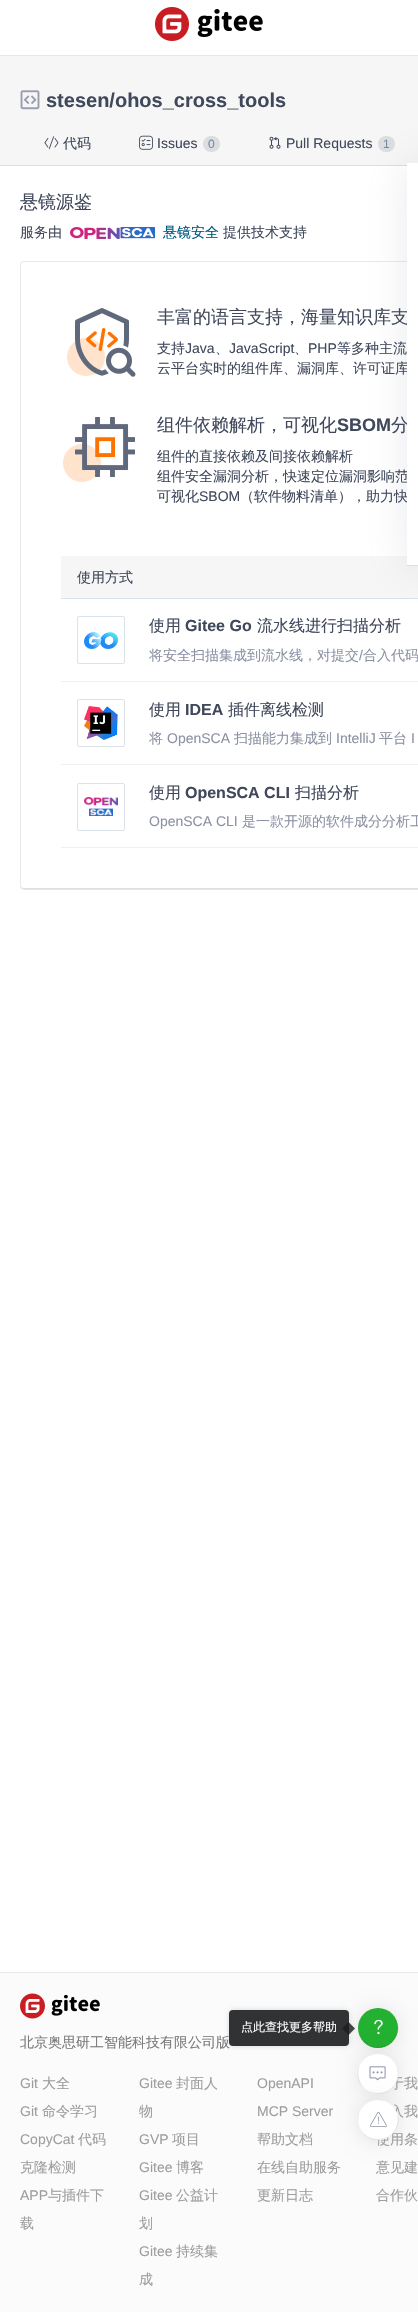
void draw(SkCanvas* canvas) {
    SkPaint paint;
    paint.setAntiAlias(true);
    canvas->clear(0xFFFFFFFF);
    paint.setColor(0xFFE3E9ED);
    canvas->drawRect(SkRect::MakeXYWH(0, 55, 418, 1), paint);
    canvas->drawImageRect(SkImages::DeferredFromEncodedData(SkData::MakeFromFileName("img1.png")), SkRect::MakeXYWH(155, 7, 108, 34), SkSamplingOptions());
    paint.setColor(0xFFF6F6F6);
    canvas->drawRect(SkRect::MakeXYWH(0, 56, 418, 109), paint);
    paint.setColor(0xFFDEDEDF);
    canvas->drawRect(SkRect::MakeXYWH(0, 165, 407, 1), paint);
    canvas->drawImageRect(SkImages::DeferredFromEncodedData(SkData::MakeFromFileName("img2.png")), SkRect::MakeXYWH(20, 90, 20, 20), SkSamplingOptions());
    SkFont font1(fontMgr->matchFamilyStyle("Liberation Sans", SkFontStyle::Bold()), 20);
    font1.setSubpixel(true);
    paint.setColor(0xFF40485B);
    canvas->drawString("stesen/ohos_cross_tools", 46, 107, font1, paint);
    canvas->drawImageRect(SkImages::DeferredFromEncodedData(SkData::MakeFromFileName("img3.png")), SkRect::MakeXYWH(44, 136, 15, 14), SkSamplingOptions());
    SkFont font2(fontMgr->matchFamilyStyle("WenQuanYi Zen Hei", SkFontStyle(500, SkFontStyle::kNormal_Width, SkFontStyle::kUpright_Slant)), 14);
    font2.setSubpixel(true);
    canvas->drawString("代码", 63, 148, font2, paint);
    paint.setColor(0xFFDCDDDE);
    canvas->drawRoundRect(SkRect::MakeXYWH(378, 136, 17, 16), 8, 8, paint);
    paint.setColor(0xFFDEDEDF);
    canvas->drawPath(SkPathBuilder().moveTo(21, 885).lineTo(21, 886).cubicTo(21, 888, 22, 889, 24, 889).lineTo(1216, 889).cubicTo(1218, 889, 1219, 888, 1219, 886).lineTo(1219, 885).cubicTo(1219, 887, 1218, 888, 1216, 888).lineTo(24, 888).cubicTo(22, 888, 21, 887, 21, 885).close().detach(), paint);
    paint.setStyle(SkPaint::kStroke_Style);
    paint.setStrokeWidth(1);
    paint.setColor(0xFFE3E9ED);
    canvas->drawRoundRect(SkRect::MakeXYWH(20.5f, 261.5f, 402, 628), 3.5f, 3.5f, paint);
    paint.setStyle(SkPaint::kFill_Style);
    paint.setColor(0xFFF6F6F6);
    canvas->drawRect(SkRect::MakeXYWH(61, 556, 357, 42), paint);
    paint.setColor(0xFFDCE3E8);
    canvas->drawRect(SkRect::MakeXYWH(61, 598, 357, 1), paint);
    paint.setColor(0x338C92A3);
    paint.setMaskFilter(SkMaskFilter::MakeBlur(kNormal_SkBlurStyle, 20));
    canvas->drawRect(SkRect::MakeXYWH(407, 164, 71, 403), paint);
    paint.setMaskFilter(nullptr);
    SkFont font3(fontMgr->matchFamilyStyle("WenQuanYi Zen Hei", SkFontStyle(500, SkFontStyle::kNormal_Width, SkFontStyle::kUpright_Slant)), 18);
    font3.setSubpixel(true);
    paint.setColor(0xFF40485B);
    canvas->drawString("丰富的语言支持，海量知识库支", 157, 323, font3, paint);
    canvas->drawString("云平台实时的组件库、漏洞库、许可证库", 157, 373, font2, paint);
    canvas->drawString("分", 391, 431, font3, paint);
    canvas->drawString("组件安全漏洞分析，快速定位漏洞影响范", 157, 481, font2, paint);
    canvas->drawString("（软件物料清单），助力快", 240, 501, font2, paint);
    paint.setColor(0xFFFFFFFF);
    canvas->drawRect(SkRect::MakeXYWH(407, 163, 11, 402), paint);
    paint.setColor(0xFFDEDEDF);
    canvas->drawRect(SkRect::MakeXYWH(407, 565, 11, 1), paint);
    canvas->drawImageRect(SkImages::DeferredFromEncodedData(SkData::MakeFromFileName("img4.png")), SkRect::MakeXYWH(139, 135, 14, 15), SkSamplingOptions());
    SkFont font4(fontMgr->matchFamilyStyle("Liberation Sans", SkFontStyle::Normal()), 14);
    font4.setSubpixel(true);
    paint.setColor(0xFF40485B);
    canvas->drawString("Issues", 157, 148, font4, paint);
    paint.setColor(0xFFDCDDDE);
    canvas->drawRoundRect(SkRect::MakeXYWH(203, 136, 17, 16), 8, 8, paint);
    SkFont font5(fontMgr->matchFamilyStyle("Liberation Sans", SkFontStyle::Normal()), 12);
    font5.setSubpixel(true);
    paint.setColor(0xFF7687AB);
    canvas->drawString("0", 208, 148, font5, paint);
    canvas->drawImageRect(SkImages::DeferredFromEncodedData(SkData::MakeFromFileName("img5.png")), SkRect::MakeXYWH(269, 136, 12, 13), SkSamplingOptions());
    paint.setColor(0xFF40485B);
    canvas->drawString("Pull Requests", 286, 148, font4, paint);
    paint.setColor(0xFF7687AB);
    canvas->drawString("1", 383, 148, font5, paint);
    paint.setColor(0xFF40485B);
    canvas->drawString("悬镜源鉴", 20, 208, font3, paint);
    canvas->drawString("服务由", 20, 237, font2, paint);
    canvas->drawImageRect(SkImages::DeferredFromEncodedData(SkData::MakeFromFileName("img6.png")), SkRect::MakeXYWH(70, 227, 85, 12), SkSamplingOptions());
    paint.setColor(0xFF005980);
    canvas->drawString("悬镜安全", 163, 237, font2, paint);
    paint.setColor(0xFF40485B);
    canvas->drawString("提供技术支持", 223, 237, font2, paint);
    canvas->drawImageRect(SkImages::DeferredFromEncodedData(SkData::MakeFromFileName("img7.png")), SkRect::MakeXYWH(67, 308, 69, 69), SkSamplingOptions());
    canvas->drawString("支持", 157, 353, font2, paint);
    canvas->drawString("Java", 185, 353, font4, paint);
    canvas->drawString("、", 215, 353, font2, paint);
    canvas->drawString("JavaScript", 229, 353, font4, paint);
    canvas->drawString("、", 294, 353, font2, paint);
    canvas->drawString("PHP", 308, 353, font4, paint);
    canvas->drawString("等多种主流", 337, 353, font2, paint);
    canvas->drawImageRect(SkImages::DeferredFromEncodedData(SkData::MakeFromFileName("img8.png")), SkRect::MakeXYWH(63, 417, 72, 65), SkSamplingOptions());
    canvas->drawString("组件依赖解析，可视化", 157, 431, font3, paint);
    SkFont font6(fontMgr->matchFamilyStyle("Liberation Sans", SkFontStyle::Bold()), 18);
    font6.setSubpixel(true);
    canvas->drawString("SBOM", 337, 431, font6, paint);
    canvas->drawString("组件的直接依赖及间接依赖解析", 157, 461, font2, paint);
    canvas->drawString("可视化", 157, 501, font2, paint);
    canvas->drawString("SBOM", 199, 501, font4, paint);
    canvas->drawString("使用方式", 77, 582, font2, paint);
    paint.setStyle(SkPaint::kStroke_Style);
    paint.setColor(0xFFDCE3E8);
    canvas->drawRoundRect(SkRect::MakeXYWH(77.5f, 616.5f, 47, 47), 1.5f, 1.5f, paint);
    canvas->drawImageRect(SkImages::DeferredFromEncodedData(SkData::MakeFromFileName("img9.png")), SkRect::MakeXYWH(84, 632, 34, 17), SkSamplingOptions());
    SkFont font7(fontMgr->matchFamilyStyle("WenQuanYi Zen Hei", SkFontStyle(500, SkFontStyle::kNormal_Width, SkFontStyle::kUpright_Slant)), 16);
    font7.setSubpixel(true);
    paint.setStyle(SkPaint::kFill_Style);
    paint.setColor(0xFF40485B);
    canvas->drawString("使用", 149, 631, font7, paint);
    SkFont font8(fontMgr->matchFamilyStyle("Liberation Sans", SkFontStyle::Bold()), 16);
    font8.setSubpixel(true);
    canvas->drawString("Gitee Go", 185, 631, font8, paint);
    canvas->drawString("流水线进行扫描分析", 257, 631, font7, paint);
    paint.setColor(0xFF8C92A4);
    canvas->drawString("将安全扫描集成到流水线，对提交", 149, 660, font2, paint);
    canvas->drawString("/", 359, 660, font4, paint);
    canvas->drawString("合入代码", 363, 660, font2, paint);
    paint.setColor(0xFFEEF1F4);
    canvas->drawRect(SkRect::MakeXYWH(61, 681, 357, 1), paint);
    paint.setStyle(SkPaint::kStroke_Style);
    paint.setColor(0xFFDCE3E8);
    canvas->drawRoundRect(SkRect::MakeXYWH(77.5f, 699.5f, 47, 47), 1.5f, 1.5f, paint);
    canvas->drawImageRect(SkImages::DeferredFromEncodedData(SkData::MakeFromFileName("img10.png")), SkRect::MakeXYWH(84, 706, 34, 34), SkSamplingOptions());
    paint.setStyle(SkPaint::kFill_Style);
    paint.setColor(0xFF40485B);
    canvas->drawString("使用", 149, 715, font7, paint);
    canvas->drawString("IDEA", 185, 715, font8, paint);
    canvas->drawString("插件离线检测", 228, 715, font7, paint);
    paint.setColor(0xFF8C92A4);
    canvas->drawString("将", 149, 743, font2, paint);
    canvas->drawString("OpenSCA", 167, 743, font4, paint);
    canvas->drawString("扫描能力集成到", 234, 743, font2, paint);
    canvas->drawString("IntelliJ", 336, 743, font4, paint);
    canvas->drawString("平台", 379, 743, font2, paint);
    canvas->drawString("I", 411, 743, font4, paint);
    paint.setColor(0xFFEEF1F4);
    canvas->drawRect(SkRect::MakeXYWH(61, 764, 357, 1), paint);
    paint.setStyle(SkPaint::kStroke_Style);
    paint.setColor(0xFFDCE3E8);
    canvas->drawRoundRect(SkRect::MakeXYWH(77.5f, 783.5f, 47, 47), 1.5f, 1.5f, paint);
    canvas->drawImageRect(SkImages::DeferredFromEncodedData(SkData::MakeFromFileName("img11.png")), SkRect::MakeXYWH(84, 797, 34, 19), SkSamplingOptions());
    paint.setStyle(SkPaint::kFill_Style);
    paint.setColor(0xFF40485B);
    canvas->drawString("使用", 149, 798, font7, paint);
    canvas->drawString("OpenSCA CLI", 185, 798, font8, paint);
    canvas->drawString("扫描分析", 295, 798, font7, paint);
    paint.setColor(0xFF8C92A4);
    canvas->drawString("OpenSCA CLI", 149, 826, font4, paint);
    canvas->drawString("是一款开源的软件成分分析工", 242, 826, font2, paint);
    paint.setColor(0xFFEEF1F4);
    canvas->drawRect(SkRect::MakeXYWH(61, 847, 357, 1), paint);
    paint.setColor(0xFFFBFBFB);
    canvas->drawRect(SkRect::MakeXYWH(0, 1973, 418, 339), paint);
    paint.setColor(0x1A000000);
    paint.setMaskFilter(SkMaskFilter::MakeBlur(kNormal_SkBlurStyle, 10));
    canvas->drawRoundRect(SkRect::MakeXYWH(358, 2009, 40, 40), 20, 20, paint);
    paint.setMaskFilter(nullptr);
    paint.setColor(0xFF22B130);
    canvas->drawCircle(378, 2028, 20, paint);
    paint.setColor(0x1A000000);
    canvas->drawPath(SkPathBuilder().moveTo(359, 2021).cubicTo(357, 2025, 358, 2031, 360, 2036).cubicTo(370, 2060, 406, 2044, 397, 2021).cubicTo(400, 2032, 394, 2047, 378, 2047).cubicTo(362, 2047, 356, 2032, 359, 2021).close().detach(), paint);
    canvas->save();
    canvas->clipPath(SkPathBuilder(SkPathFillType::kEvenOdd).moveTo(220, 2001).lineTo(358, 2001).lineTo(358, 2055).lineTo(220, 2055).close().moveTo(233, 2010).lineTo(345, 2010).cubicTo(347, 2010, 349, 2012, 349, 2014).lineTo(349, 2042).cubicTo(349, 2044, 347, 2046, 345, 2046).lineTo(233, 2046).cubicTo(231, 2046, 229, 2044, 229, 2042).lineTo(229, 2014).cubicTo(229, 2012, 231, 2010, 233, 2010).close().detach(), true);
    paint.setColor(0x738C92A3);
    paint.setMaskFilter(SkMaskFilter::MakeBlur(kNormal_SkBlurStyle, 3));
    canvas->drawRoundRect(SkRect::MakeXYWH(230, 2011, 118, 34), 3, 3, paint);
    paint.setMaskFilter(nullptr);
    canvas->restore();
    paint.setColor(0xFF7A7A7A);
    canvas->drawString("北京奥思研工智能科技有限公司版", 20, 2047, font2, paint);
    paint.setColor(0xE61B1C1D);
    canvas->drawRoundRect(SkRect::MakeXYWH(229, 2010, 120, 36), 4, 4, paint);
    SkFont font9(fontMgr->matchFamilyStyle("WenQuanYi Zen Hei", SkFontStyle(500, SkFontStyle::kNormal_Width, SkFontStyle::kUpright_Slant)), 12);
    font9.setSubpixel(true);
    paint.setColor(0xFFFFFFFF);
    canvas->drawString("点此查找更多帮助", 241, 2031, font9, paint);
    paint.setColor(0x29B3B3B3);
    canvas->drawPath(SkPathBuilder().moveTo(350, 2022).lineTo(349, 2023).lineTo(355, 2028.5f).lineTo(349, 2034).lineTo(350, 2035).lineTo(356, 2028.5f).close().detach(), paint);
    paint.setColor(0xCF1B1C1D);
    canvas->drawPath(SkPathBuilder().moveTo(348.5f, 2022).lineTo(355, 2028.5f).lineTo(348.5f, 2035).lineTo(342, 2028.5f).close().detach(), paint);
    canvas->drawImageRect(SkImages::DeferredFromEncodedData(SkData::MakeFromFileName("img12.png")), SkRect::MakeXYWH(374, 2019, 9, 16), SkSamplingOptions());
    paint.setColor(0x1A000000);
    paint.setMaskFilter(SkMaskFilter::MakeBlur(kNormal_SkBlurStyle, 10));
    canvas->drawRoundRect(SkRect::MakeXYWH(358, 2055, 40, 40), 20, 20, paint);
    paint.setMaskFilter(nullptr);
    paint.setColor(0xFF9D9D9D);
    canvas->drawString("于我", 390, 2088, font2, paint);
    paint.setColor(0xFFFFFFFF);
    canvas->drawCircle(378, 2074, 20, paint);
    paint.setColor(0x1A000000);
    canvas->drawPath(SkPathBuilder().moveTo(359, 2067).cubicTo(350, 2090, 386, 2106, 396, 2082).cubicTo(398, 2077, 399, 2071, 397, 2067).cubicTo(400, 2078, 394, 2093, 378, 2093).cubicTo(362, 2093, 356, 2078, 359, 2067).close().detach(), paint);
    canvas->drawImageRect(SkImages::DeferredFromEncodedData(SkData::MakeFromFileName("img13.png")), SkRect::MakeXYWH(369, 2066, 17, 15), SkSamplingOptions());
    paint.setMaskFilter(SkMaskFilter::MakeBlur(kNormal_SkBlurStyle, 10));
    canvas->drawRoundRect(SkRect::MakeXYWH(358, 2101, 40, 40), 20, 20, paint);
    paint.setMaskFilter(nullptr);
    paint.setColor(0xFF9D9D9D);
    canvas->drawString("入我", 390, 2116, font2, paint);
    canvas->drawString("使用条", 376, 2144, font2, paint);
    paint.setColor(0xFFFFFFFF);
    canvas->drawCircle(378, 2120, 20, paint);
    paint.setColor(0x1A000000);
    canvas->drawPath(SkPathBuilder().moveTo(359, 2113).cubicTo(357, 2117, 358, 2123, 360, 2128).cubicTo(370, 2152, 406, 2136, 397, 2113).cubicTo(400, 2124, 394, 2139, 378, 2139).cubicTo(362, 2139, 356, 2124, 359, 2113).close().detach(), paint);
    canvas->drawImageRect(SkImages::DeferredFromEncodedData(SkData::MakeFromFileName("img14.png")), SkRect::MakeXYWH(370, 2111, 17, 16), SkSamplingOptions());
    paint.setColor(0xFFE3E9ED);
    canvas->drawRect(SkRect::MakeXYWH(0, 1972, 418, 1), paint);
    canvas->drawImageRect(SkImages::DeferredFromEncodedData(SkData::MakeFromFileName("img15.png")), SkRect::MakeXYWH(20, 1993, 80, 26), SkSamplingOptions());
    paint.setColor(0xFF9D9D9D);
    canvas->drawString("Git", 20, 2088, font4, paint);
    canvas->drawString("大全", 42, 2088, font2, paint);
    canvas->drawString("Git", 20, 2116, font4, paint);
    canvas->drawString("命令学习", 42, 2116, font2, paint);
    canvas->drawString("CopyCat", 20, 2144, font4, paint);
    canvas->drawString("代码", 78, 2144, font2, paint);
    canvas->drawString("克隆检测", 20, 2172, font2, paint);
    canvas->drawString("APP", 20, 2200, font4, paint);
    canvas->drawString("与插件下", 48, 2200, font2, paint);
    canvas->drawString("载", 20, 2228, font2, paint);
    canvas->drawString("Gitee", 139, 2088, font4, paint);
    canvas->drawString("封面人", 176, 2088, font2, paint);
    canvas->drawString("物", 139, 2116, font2, paint);
    canvas->drawString("GVP", 139, 2144, font4, paint);
    canvas->drawString("项目", 172, 2144, font2, paint);
    canvas->drawString("Gitee", 139, 2172, font4, paint);
    canvas->drawString("博客", 176, 2172, font2, paint);
    canvas->drawString("Gitee", 139, 2200, font4, paint);
    canvas->drawString("公益计", 176, 2200, font2, paint);
    canvas->drawString("划", 139, 2228, font2, paint);
    canvas->drawString("Gitee", 139, 2256, font4, paint);
    canvas->drawString("持续集", 176, 2256, font2, paint);
    canvas->drawString("成", 139, 2284, font2, paint);
    canvas->drawString("OpenAPI", 257, 2088, font4, paint);
    canvas->drawString("MCP Server", 257, 2116, font4, paint);
    canvas->drawString("帮助文档", 257, 2144, font2, paint);
    canvas->drawString("在线自助服务", 257, 2172, font2, paint);
    canvas->drawString("更新日志", 257, 2200, font2, paint);
    canvas->drawString("意见建", 376, 2172, font2, paint);
    canvas->drawString("合作伙", 376, 2200, font2, paint);
}
